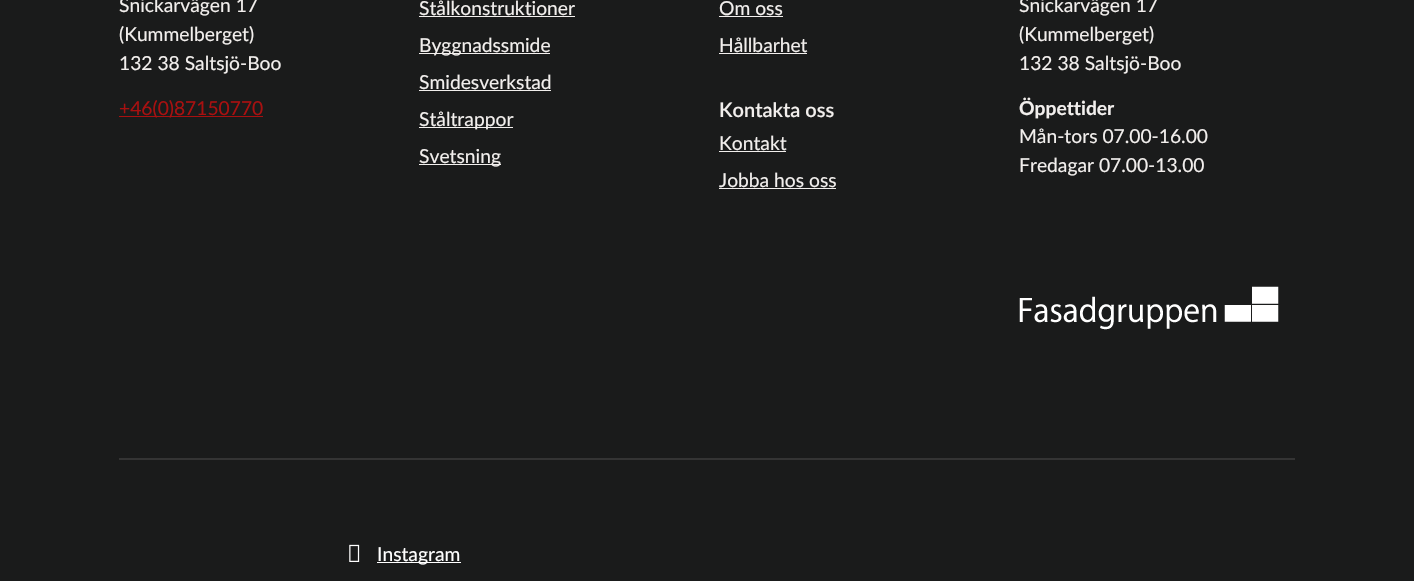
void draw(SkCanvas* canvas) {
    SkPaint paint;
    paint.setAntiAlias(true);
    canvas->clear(0xFF1A1B1B);
    SkFont font1(fontMgr->matchFamilyStyle("Lato", SkFontStyle::Normal()), 19.25f);
    font1.setSubpixel(true);
    paint.setColor(0xFFF2EFED);
    canvas->drawString("Snickarvägen 17", 119, 12, font1, paint);
    canvas->drawString("(Kummelberget)", 119, 41, font1, paint);
    canvas->drawString("132 38 Saltsjö-Boo", 119, 70, font1, paint);
    paint.setColor(0xFFA81010);
    canvas->drawRect(SkRect::MakeXYWH(119, 116, 144, 1), paint);
    canvas->drawString("+46(0)87150770", 119, 115, font1, paint);
    paint.setColor(0xFFF2EFED);
    canvas->drawString("Stålkonstruktioner", 419, 15, font1, paint);
    canvas->drawRect(SkRect::MakeXYWH(419, 16, 156, 1), paint);
    canvas->drawRect(SkRect::MakeXYWH(419, 53, 131, 1), paint);
    canvas->drawString("Byggnadssmide", 419, 52, font1, paint);
    canvas->drawString("Smidesverkstad", 419, 89, font1, paint);
    canvas->drawRect(SkRect::MakeXYWH(419, 90, 132, 1), paint);
    canvas->drawRect(SkRect::MakeXYWH(419, 127, 94, 1), paint);
    canvas->drawString("Ståltrappor", 419, 126, font1, paint);
    canvas->drawRect(SkRect::MakeXYWH(419, 164, 82, 1), paint);
    canvas->drawString("Svetsning", 419, 163, font1, paint);
    canvas->drawString("Om oss", 719, 15, font1, paint);
    canvas->drawRect(SkRect::MakeXYWH(719, 16, 64, 1), paint);
    canvas->drawString("Hållbarhet", 719, 52, font1, paint);
    canvas->drawRect(SkRect::MakeXYWH(719, 53, 88, 1), paint);
    SkFont font2(fontMgr->matchFamilyStyle("Lato", SkFontStyle(600, SkFontStyle::kNormal_Width, SkFontStyle::kUpright_Slant)), 20);
    font2.setSubpixel(true);
    canvas->drawString("Kontakta oss", 719, 117, font2, paint);
    canvas->drawString("Kontakt", 719, 150, font1, paint);
    canvas->drawRect(SkRect::MakeXYWH(719, 151, 67, 1), paint);
    canvas->drawString("Jobba hos oss", 719, 187, font1, paint);
    canvas->drawRect(SkRect::MakeXYWH(719, 188, 117, 1), paint);
    canvas->drawString("Snickarvägen 17", 1019, 12, font1, paint);
    canvas->drawString("(Kummelberget)", 1019, 41, font1, paint);
    canvas->drawString("132 38 Saltsjö-Boo", 1019, 70, font1, paint);
    SkFont font3(fontMgr->matchFamilyStyle("Lato", SkFontStyle::Bold()), 19.25f);
    font3.setSubpixel(true);
    canvas->drawString("Öppettider", 1019, 115, font3, paint);
    canvas->drawString("Mån-tors 07.00-16.00", 1019, 143, font1, paint);
    canvas->drawString("Fredagar 07.00-13.00", 1019, 172, font1, paint);
    canvas->drawImageRect(SkImages::DeferredFromEncodedData(SkData::MakeFromFileName("img1.png")), SkRect::MakeXYWH(1019, 286, 260, 44), SkSamplingOptions());
    paint.setColor(0xFF343434);
    canvas->drawRect(SkRect::MakeXYWH(119, 458, 1176, 2), paint);
    canvas->drawImageRect(SkImages::DeferredFromEncodedData(SkData::MakeFromFileName("img2.png")), SkRect::MakeXYWH(349, 544, 11, 18), SkSamplingOptions());
    paint.setColor(0xFFFFFFFF);
    canvas->drawRect(SkRect::MakeXYWH(377, 562, 84, 1), paint);
    canvas->drawString("Instagram", 377, 561, font1, paint);
}
